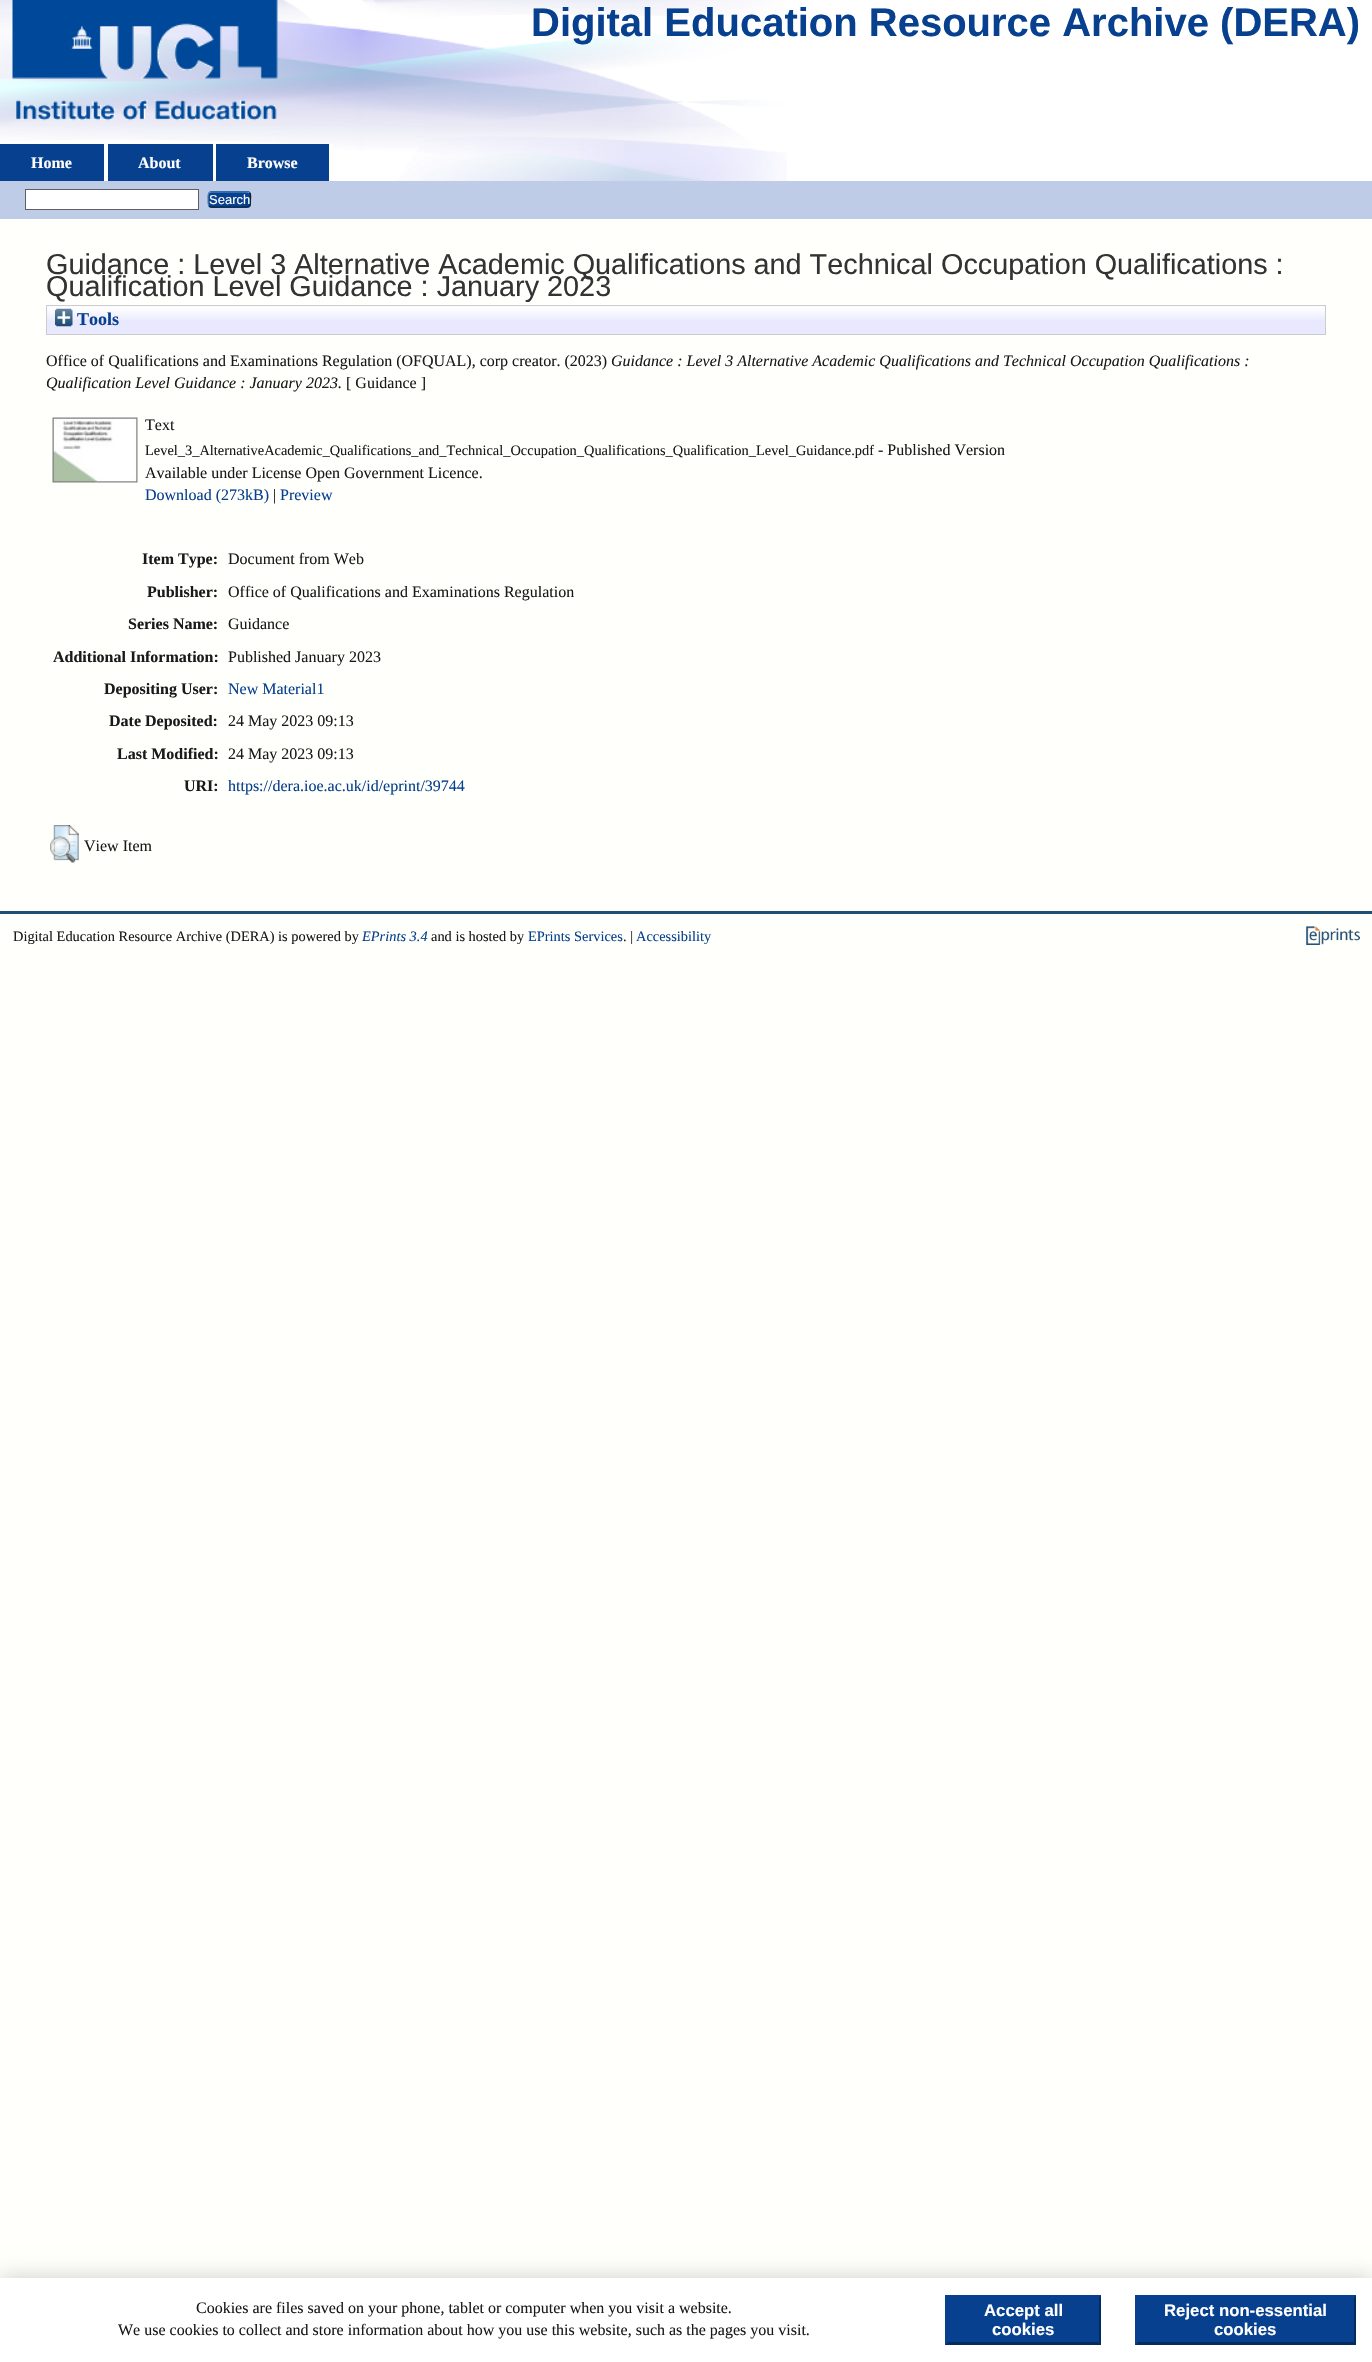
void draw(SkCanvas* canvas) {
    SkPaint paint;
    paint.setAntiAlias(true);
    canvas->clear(0xFFFFFFFC);
    paint.setColor(0xFFFFFFFF);
    canvas->drawRect(SkRect::MakeXYWH(0, 0, 1372, 181), paint);
    canvas->drawImageRect(SkImages::DeferredFromEncodedData(SkData::MakeFromFileName("img1.png")), SkRect::MakeXYWH(0, 0, 787, 181), SkSamplingOptions());
    canvas->drawImageRect(SkImages::DeferredFromEncodedData(SkData::MakeFromFileName("img2.png")), SkRect::MakeXYWH(12, 0, 266, 121), SkSamplingOptions());
    SkFont font1(fontMgr->matchFamilyStyle("Liberation Sans", SkFontStyle::Bold()), 40);
    font1.setSubpixel(true);
    paint.setColor(0xFF07408E);
    canvas->drawString("Digital Education Resource Archive (DERA)", 531, 36, font1, paint);
    canvas->drawRect(SkRect::MakeXYWH(0, 144, 104, 37), paint);
    paint.setColor(0xFFFFFFFF);
    canvas->drawRect(SkRect::MakeXYWH(104, 166, 4, 15), paint);
    SkFont font2(fontMgr->matchFamilyStyle("Liberation Serif", SkFontStyle::Bold()), 16);
    font2.setSubpixel(true);
    canvas->drawString("Home", 31, 168, font2, paint);
    paint.setColor(0xFF07408E);
    canvas->drawRect(SkRect::MakeXYWH(108, 144, 105, 37), paint);
    paint.setColor(0xFFFFFFFF);
    canvas->drawRect(SkRect::MakeXYWH(213, 158, 3, 23), paint);
    canvas->drawString("About", 138, 168, font2, paint);
    paint.setColor(0xFF07408E);
    canvas->drawRect(SkRect::MakeXYWH(216, 144, 113, 37), paint);
    paint.setColor(0xFFFFFFFF);
    canvas->drawRect(SkRect::MakeXYWH(329, 144, 4, 4), paint);
    canvas->drawString("Browse", 247, 168, font2, paint);
    paint.setColor(0xFFBFCCE8);
    canvas->drawRect(SkRect::MakeXYWH(0, 181, 1372, 38), paint);
    paint.setColor(0xFFFFFFFF);
    canvas->drawRect(SkRect::MakeXYWH(25.5f, 189.5f, 173, 20), paint);
    paint.setStyle(SkPaint::kStroke_Style);
    paint.setStrokeWidth(1);
    paint.setColor(0xFF606060);
    canvas->drawRect(SkRect::MakeXYWH(25.5f, 189.5f, 173, 20), paint);
    paint.setStyle(SkPaint::kFill_Style);
    paint.setColor(0xFF07408E);
    canvas->drawRoundRect(SkRect::MakeXYWH(208, 191, 43, 17), 4, 4, paint);
    paint.setStyle(SkPaint::kStroke_Style);
    paint.setStrokeWidth(1.2f);
    paint.setColor(0xFF5B97C7);
    canvas->drawPath(SkPathBuilder().moveTo(209, 193).lineTo(211, 192).lineTo(247.5f, 192).lineTo(249.5f, 193).detach(), paint);
    paint.setColor(0xFF0D2131);
    canvas->drawPath(SkPathBuilder().moveTo(249.5f, 193).cubicTo(251.5f, 194.5f, 250.5f, 197.5f, 250.5f, 199.5f).cubicTo(250.5f, 207.5f, 250, 207, 241.5f, 207).lineTo(217.5f, 207).cubicTo(216, 207, 211, 208, 209, 206).detach(), paint);
    paint.setColor(0xFF5287B3);
    canvas->drawPath(SkPathBuilder().moveTo(209, 206).cubicTo(207.5f, 204.5f, 208, 201.5f, 208, 199.5f).cubicTo(208, 197.5f, 207.5f, 194.5f, 209, 193).detach(), paint);
    SkFont font3(fontMgr->matchFamilyStyle("Liberation Sans", SkFontStyle::Normal()), 13);
    font3.setSubpixel(true);
    paint.setStyle(SkPaint::kFill_Style);
    paint.setColor(0xFFFFFFFF);
    canvas->drawString("Search", 209, 204, font3, paint);
    SkFont font4(fontMgr->matchFamilyStyle("Liberation Sans", SkFontStyle::Normal()), 28.8f);
    font4.setSubpixel(true);
    paint.setColor(0xFF333333);
    canvas->drawString("Guidance : Level 3 Alternative Academic Qualifications and Technical", 46, 274, font4, paint);
    canvas->drawString("Occupation Qualifications :", 941, 274, font4, paint);
    canvas->drawString("Qualification Level Guidance : January 2023", 46, 296, font4, paint);
    paint.setColor(0xFFE8E8FF);
    canvas->drawRect(SkRect::MakeXYWH(47, 306, 1278, 28), paint);
    canvas->drawImageRect(SkImages::DeferredFromEncodedData(SkData::MakeFromFileName("img3.png")), SkRect::MakeXYWH(47, 306, 1278, 14), SkSamplingOptions());
    paint.setStyle(SkPaint::kStroke_Style);
    paint.setStrokeWidth(1);
    paint.setColor(0xFFCCCCCC);
    canvas->drawRect(SkRect::MakeXYWH(46.5f, 305.5f, 1279, 29), paint);
    canvas->drawImageRect(SkImages::DeferredFromEncodedData(SkData::MakeFromFileName("img4.png")), SkRect::MakeXYWH(55, 308, 18, 19), SkSamplingOptions());
    SkFont font5(fontMgr->matchFamilyStyle("Liberation Serif", SkFontStyle::Bold()), 18);
    font5.setSubpixel(true);
    paint.setStyle(SkPaint::kFill_Style);
    paint.setColor(0xFF07408E);
    canvas->drawString("Tools", 77, 325, font5, paint);
    SkFont font6(fontMgr->matchFamilyStyle("Liberation Serif", SkFontStyle::Normal()), 16);
    font6.setSubpixel(true);
    paint.setColor(0xFF1A1A1A);
    canvas->drawString("Office of Qualifications and Examinations Regulation (OFQUAL), corp creator. (2023)", 46, 366, font6, paint);
    SkFont font7(fontMgr->matchFamilyStyle("Liberation Serif", SkFontStyle::Italic()), 16);
    font7.setSubpixel(true);
    canvas->drawString("Guidance : Level 3 Alternative Academic Qualifications and Technical Occupation Qualifications :", 611, 366, font7, paint);
    canvas->drawString("Qualification Level Guidance : January 2023.", 46, 388, font7, paint);
    canvas->drawString("[ Guidance ]", 346, 388, font6, paint);
    canvas->drawImageRect(SkImages::DeferredFromEncodedData(SkData::MakeFromFileName("img5.png")), SkRect::MakeXYWH(52, 417, 86, 66), SkSamplingOptions());
    canvas->drawString("Text", 145, 430, font6, paint);
    SkFont font8(fontMgr->matchFamilyStyle("Liberation Serif", SkFontStyle::Normal()), 14.4f);
    font8.setSubpixel(true);
    canvas->drawString("Level_3_AlternativeAcademic_Qualifications_and_Technical_Occupation_Qualifications_Qualification_Level_Guidance.pdf", 145, 455, font8, paint);
    canvas->drawString("- Published Version", 878, 455, font6, paint);
    canvas->drawString("Available under License Open Government Licence.", 145, 478, font6, paint);
    paint.setColor(0xFF07408E);
    canvas->drawString("Download (273kB)", 145, 500, font6, paint);
    paint.setColor(0xFF1A1A1A);
    canvas->drawString("|", 273, 500, font6, paint);
    paint.setColor(0xFF07408E);
    canvas->drawString("Preview", 280, 500, font6, paint);
    paint.setColor(0xFF1A1A1A);
    canvas->drawString("Item Type:", 142, 564, font2, paint);
    canvas->drawString("Document from Web", 228, 564, font6, paint);
    canvas->drawString("Publisher:", 147, 597, font2, paint);
    canvas->drawString("Office of Qualifications and Examinations Regulation", 228, 597, font6, paint);
    canvas->drawString("Series Name:", 128, 629, font2, paint);
    canvas->drawString("Guidance", 228, 629, font6, paint);
    canvas->drawString("Additional Information:", 53, 662, font2, paint);
    canvas->drawString("Published January 2023", 228, 662, font6, paint);
    canvas->drawString("Depositing User:", 104, 694, font2, paint);
    paint.setColor(0xFF07408E);
    canvas->drawString("New Material1", 228, 694, font6, paint);
    paint.setColor(0xFF1A1A1A);
    canvas->drawString("Date Deposited:", 109, 726, font2, paint);
    canvas->drawString("24 May 2023 09:13", 228, 726, font6, paint);
    canvas->drawString("Last Modified:", 117, 759, font2, paint);
    canvas->drawString("24 May 2023 09:13", 228, 759, font6, paint);
    canvas->drawString("URI:", 184, 791, font2, paint);
    paint.setColor(0xFF07408E);
    canvas->drawString("https://dera.ioe.ac.uk/id/eprint/39744", 228, 791, font6, paint);
    canvas->drawImageRect(SkImages::DeferredFromEncodedData(SkData::MakeFromFileName("img6.png")), SkRect::MakeXYWH(50, 825, 29, 38), SkSamplingOptions());
    paint.setColor(0xFF1A1A1A);
    canvas->drawString("View Item", 84, 851, font6, paint);
    paint.setColor(0xFF204F76);
    canvas->drawRect(SkRect::MakeXYWH(0, 911, 1372, 3), paint);
    paint.setColor(0xFF1A1A1A);
    canvas->drawString("Digital Education Resource Archive (DERA) is powered by", 13, 941, font8, paint);
    SkFont font9(fontMgr->matchFamilyStyle("Liberation Serif", SkFontStyle::Italic()), 14.4f);
    font9.setSubpixel(true);
    paint.setColor(0xFF07408E);
    canvas->drawString("EPrints 3.4", 362, 941, font9, paint);
    paint.setColor(0xFF1A1A1A);
    canvas->drawString("and is hosted by", 431, 941, font8, paint);
    paint.setColor(0xFF07408E);
    canvas->drawString("EPrints Services", 528, 941, font8, paint);
    paint.setColor(0xFF1A1A1A);
    canvas->drawString(". |", 623, 941, font8, paint);
    paint.setColor(0xFF07408E);
    canvas->drawString("Accessibility", 636, 941, font8, paint);
    canvas->drawImageRect(SkImages::DeferredFromEncodedData(SkData::MakeFromFileName("img7.png")), SkRect::MakeXYWH(1306, 926, 54, 19), SkSamplingOptions());
    paint.setColor(0x33000000);
    paint.setMaskFilter(SkMaskFilter::MakeBlur(kNormal_SkBlurStyle, 11));
    canvas->drawRect(SkRect::MakeXYWH(0, 2278, 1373, 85), paint);
    paint.setMaskFilter(nullptr);
    paint.setColor(0xFFFFFFFF);
    canvas->drawRect(SkRect::MakeXYWH(0, 2278, 1372, 84), paint);
    paint.setColor(0xFF1A1A1A);
    canvas->drawString("Cookies are files saved on your phone, tablet or computer when you visit a website.", 196, 2313, font6, paint);
    canvas->drawString("We use cookies to collect and store information about how you use this website, such as the pages you visit.", 118, 2335, font6, paint);
    paint.setColor(0xFF07408E);
    canvas->drawRect(SkRect::MakeXYWH(945, 2295, 156, 50), paint);
    paint.setColor(0xFF052B5F);
    canvas->drawPath(SkPathBuilder().moveTo(1101, 2295).lineTo(1101, 2345).lineTo(1099, 2342).lineTo(1099, 2298).close().detach(), paint);
    canvas->drawPath(SkPathBuilder().moveTo(1101, 2345).lineTo(945, 2345).lineTo(948, 2342).lineTo(1099, 2342).close().detach(), paint);
    paint.setColor(0xFF07408E);
    canvas->drawPath(SkPathBuilder().moveTo(945, 2345).lineTo(945, 2295).lineTo(948, 2298).lineTo(948, 2342).close().detach(), paint);
    SkFont font10(fontMgr->matchFamilyStyle("Liberation Sans", SkFontStyle::Bold()), 16.75f);
    font10.setSubpixel(true);
    paint.setColor(0xFFFFFFFF);
    canvas->drawString("Accept all", 984, 2316, font10, paint);
    canvas->drawString("cookies", 992, 2335, font10, paint);
    paint.setColor(0xFF07408E);
    canvas->drawRect(SkRect::MakeXYWH(1135, 2295, 221, 50), paint);
    paint.setColor(0xFF052B5F);
    canvas->drawPath(SkPathBuilder().moveTo(1356, 2295).lineTo(1356, 2345).lineTo(1354, 2342).lineTo(1354, 2298).close().detach(), paint);
    canvas->drawPath(SkPathBuilder().moveTo(1356, 2345).lineTo(1135, 2345).lineTo(1138, 2342).lineTo(1354, 2342).close().detach(), paint);
    paint.setColor(0xFF07408E);
    canvas->drawPath(SkPathBuilder().moveTo(1135, 2345).lineTo(1135, 2295).lineTo(1138, 2298).lineTo(1138, 2342).close().detach(), paint);
    paint.setColor(0xFFFFFFFF);
    canvas->drawString("Reject non-essential", 1164, 2316, font10, paint);
    canvas->drawString("cookies", 1214, 2335, font10, paint);
}
